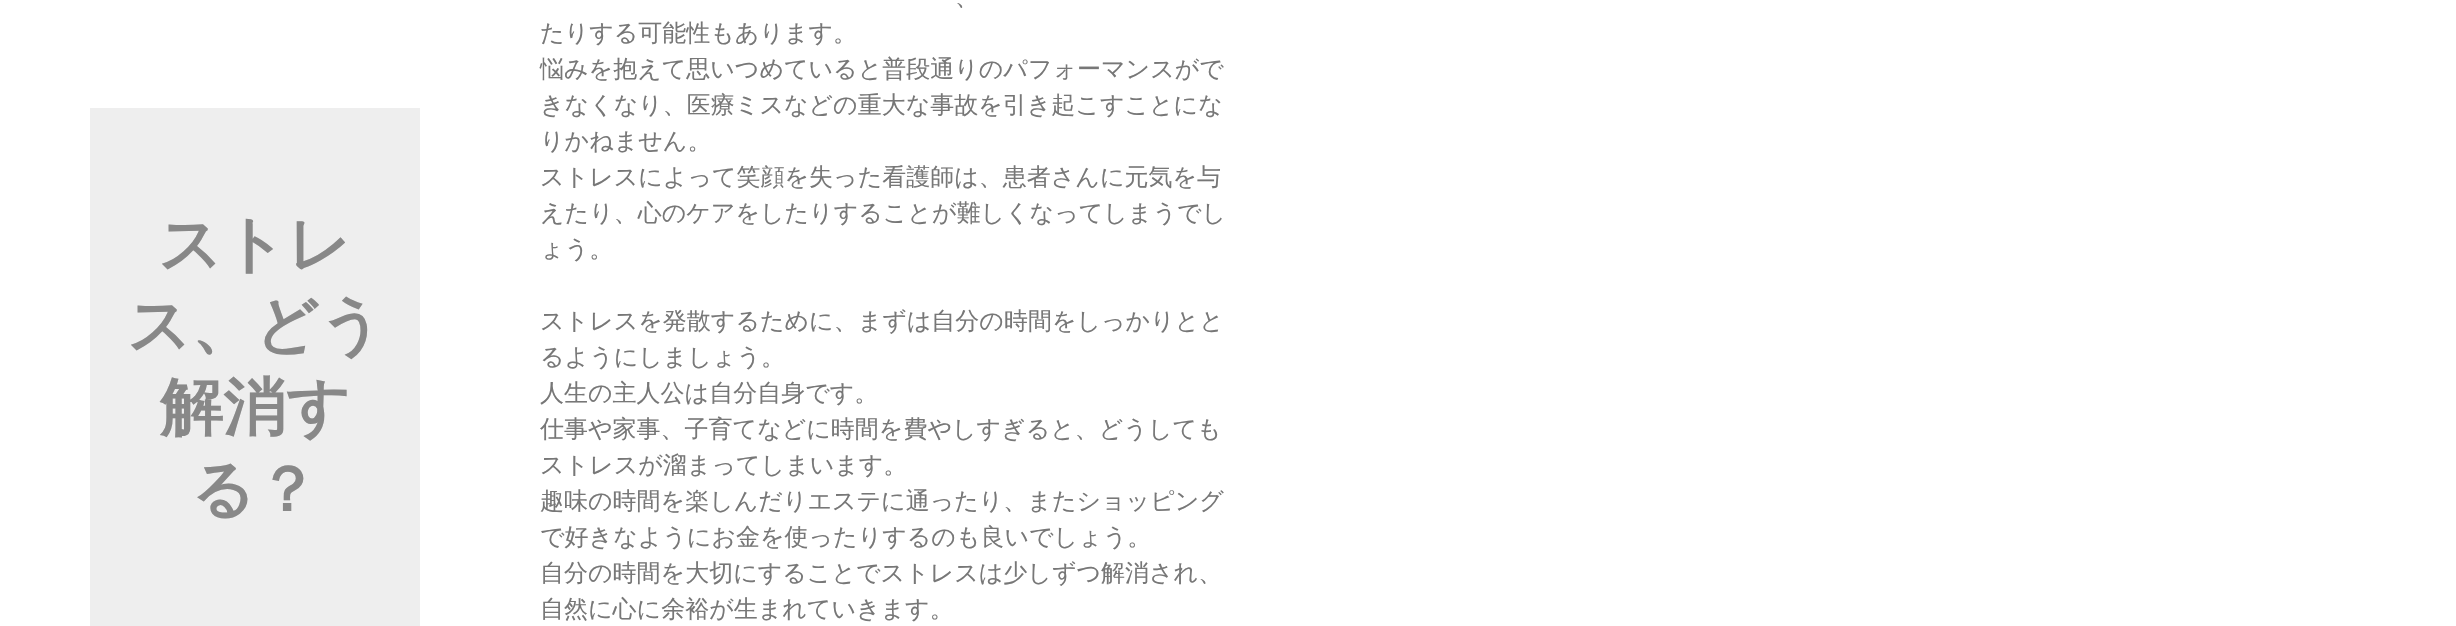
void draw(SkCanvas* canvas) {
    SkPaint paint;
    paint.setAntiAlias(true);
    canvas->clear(0xFFFFFFFF);
    paint.setColor(0xFFEEEEEE);
    canvas->drawRect(SkRect::MakeXYWH(90, 108, 330, 518), paint);
    SkFont font1(fontMgr->matchFamilyStyle("WenQuanYi Zen Hei", SkFontStyle::Bold()), 63);
    font1.setSubpixel(true);
    paint.setColor(0xFF888888);
    canvas->drawString("ストレ", 158, 266, font1, paint);
    canvas->drawString("ス、どう", 127, 347, font1, paint);
    canvas->drawString("解消す", 160, 429, font1, paint);
    canvas->drawString("る？", 191, 511, font1, paint);
    SkFont font2(fontMgr->matchFamilyStyle("WenQuanYi Zen Hei", SkFontStyle(500, SkFontStyle::kNormal_Width, SkFontStyle::kUpright_Slant)), 24);
    font2.setSubpixel(true);
    paint.setColor(0xFF777777);
    canvas->drawString("、", 955, 5, font2, paint);
    canvas->drawString("たりする可能性もあります。", 540, 41, font2, paint);
    canvas->drawString("悩みを抱えて思いつめていると普段通りのパフォーマンスがで", 540, 77, font2, paint);
    canvas->drawString("きなくなり、医療ミスなどの重大な事故を引き起こすことにな", 540, 113, font2, paint);
    canvas->drawString("りかねません。", 540, 149, font2, paint);
    canvas->drawString("ストレスによって笑顔を失った看護師は、患者さんに元気を与", 540, 185, font2, paint);
    canvas->drawString("えたり、心のケアをしたりすることが難しくなってしまうでし", 540, 221, font2, paint);
    canvas->drawString("ょう。", 540, 257, font2, paint);
    canvas->drawString("ストレスを発散するために、まずは自分の時間をしっかりとと", 540, 329, font2, paint);
    canvas->drawString("るようにしましょう。", 540, 365, font2, paint);
    canvas->drawString("人生の主人公は自分自身です。", 540, 401, font2, paint);
    canvas->drawString("仕事や家事、子育てなどに時間を費やしすぎると、どうしても", 540, 437, font2, paint);
    canvas->drawString("ストレスが溜まってしまいます。", 540, 473, font2, paint);
    canvas->drawString("趣味の時間を楽しんだりエステに通ったり、またショッピング", 540, 509, font2, paint);
    canvas->drawString("で好きなようにお金を使ったりするのも良いでしょう。", 540, 545, font2, paint);
    canvas->drawString("自分の時間を大切にすることでストレスは少しずつ解消され、", 540, 581, font2, paint);
    canvas->drawString("自然に心に余裕が生まれていきます。", 540, 617, font2, paint);
}
